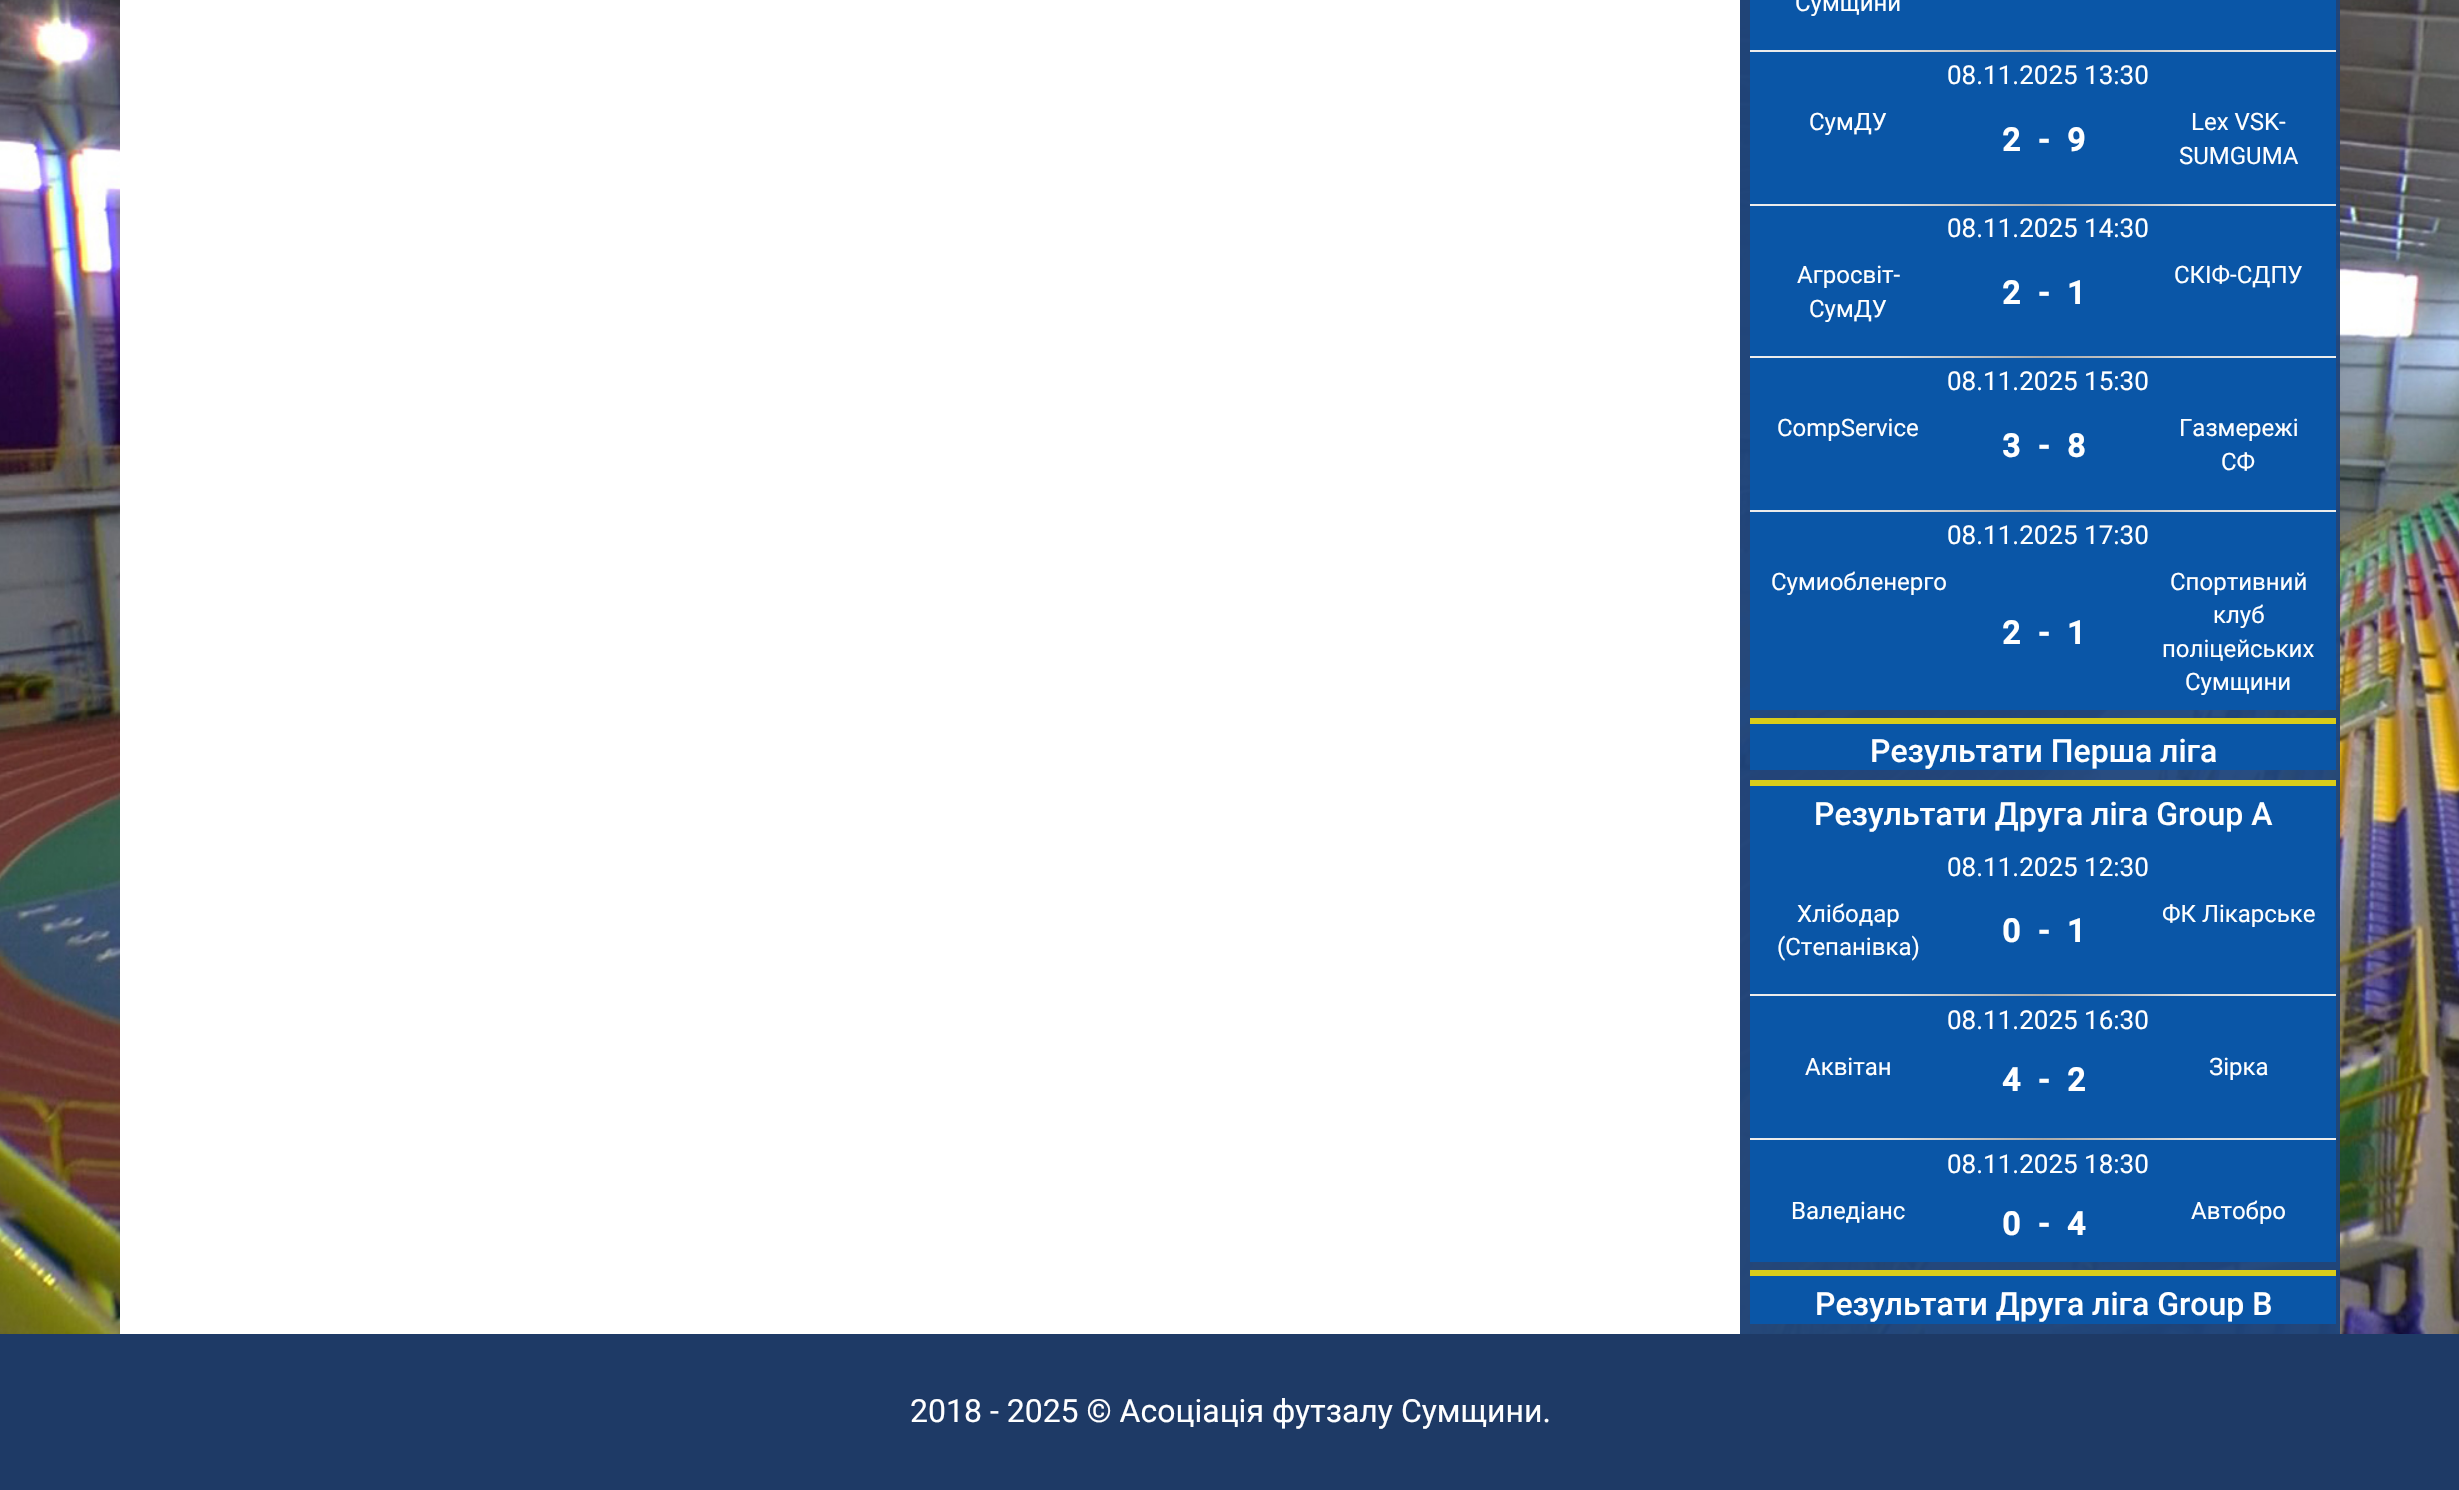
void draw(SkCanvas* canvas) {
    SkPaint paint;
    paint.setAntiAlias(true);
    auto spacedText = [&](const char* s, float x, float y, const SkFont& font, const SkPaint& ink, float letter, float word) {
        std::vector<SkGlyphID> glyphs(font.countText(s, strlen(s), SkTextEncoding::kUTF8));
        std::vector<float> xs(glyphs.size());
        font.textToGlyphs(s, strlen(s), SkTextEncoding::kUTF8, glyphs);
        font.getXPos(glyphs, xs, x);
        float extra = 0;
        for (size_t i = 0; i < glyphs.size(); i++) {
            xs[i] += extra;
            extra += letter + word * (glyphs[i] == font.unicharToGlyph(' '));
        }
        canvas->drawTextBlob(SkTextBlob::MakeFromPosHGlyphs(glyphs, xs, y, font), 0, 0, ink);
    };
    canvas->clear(0xFFFFFFFF);
    canvas->drawImageRect(SkImages::DeferredFromEncodedData(SkData::MakeFromFileName("img1.png")), SkRect::MakeXYWH(0, 0, 2459, 1334), SkSamplingOptions());
    paint.setColor(0xF21E437A);
    canvas->drawRect(SkRect::MakeXYWH(1740, 0, 600, 1334), paint);
    paint.setColor(0xFFFFFFFF);
    canvas->drawRect(SkRect::MakeXYWH(120, 0, 1620, 1334), paint);
    paint.setColor(0xFF0A56A7);
    canvas->drawRect(SkRect::MakeXYWH(1750, 0, 586, 710), paint);
    SkFont font1(fontMgr->matchFamilyStyle("Roboto", SkFontStyle::Normal()), 24);
    font1.setSubpixel(true);
    paint.setColor(0xFFFFFFFF);
    canvas->drawString("Сумщини", 1795, 11, font1, paint);
    {
        const SkColor colors[] = {0xFFEEEEEE, 0xFFDDDDDD, 0xFFAAAAAA, 0xFFDDDDDD, 0xFFEEEEEE};
        const float stops[] = {0, 0.25f, 0.5f, 0.75f, 1};
        const SkPoint ends[] = {{1750, 51}, {2336, 51}};
        paint.setShader(SkGradientShader::MakeLinear(ends, colors, stops, 5, SkTileMode::kClamp));
        paint.setAlpha(255);
    }
    canvas->drawRect(SkRect::MakeXYWH(1750, 50, 586, 2), paint);
    SkFont font2(fontMgr->matchFamilyStyle("Roboto", SkFontStyle::Normal()), 26);
    font2.setSubpixel(true);
    paint.setShader(nullptr);
    paint.setColor(0xFFFFFFFF);
    canvas->drawString("08.11.2025 13:30", 1947, 84, font2, paint);
    canvas->drawString("СумДУ", 1809, 130, font1, paint);
    SkFont font3(fontMgr->matchFamilyStyle("Roboto", SkFontStyle::Bold()), 32);
    font3.setSubpixel(true);
    spacedText("2 - 9", 2002, 151, font3, paint, 0, 10);
    canvas->drawString("Lex VSK-", 2191, 130, font1, paint);
    canvas->drawString("SUMGUMA", 2179, 164, font1, paint);
    {
        const SkColor colors[] = {0xFFEEEEEE, 0xFFDDDDDD, 0xFFAAAAAA, 0xFFDDDDDD, 0xFFEEEEEE};
        const float stops[] = {0, 0.25f, 0.5f, 0.75f, 1};
        const SkPoint ends[] = {{1750, 205}, {2336, 205}};
        paint.setShader(SkGradientShader::MakeLinear(ends, colors, stops, 5, SkTileMode::kClamp));
        paint.setAlpha(255);
    }
    canvas->drawRect(SkRect::MakeXYWH(1750, 204, 586, 2), paint);
    paint.setShader(nullptr);
    paint.setColor(0xFFFFFFFF);
    canvas->drawString("08.11.2025 14:30", 1947, 237, font2, paint);
    canvas->drawString("Агросвіт-", 1797, 283, font1, paint);
    canvas->drawString("СумДУ", 1809, 317, font1, paint);
    canvas->drawString("СКІФ-СДПУ", 2174, 283, font1, paint);
    spacedText("2 - 1", 2002, 304, font3, paint, 0, 10);
    {
        const SkColor colors[] = {0xFFEEEEEE, 0xFFDDDDDD, 0xFFAAAAAA, 0xFFDDDDDD, 0xFFEEEEEE};
        const float stops[] = {0, 0.25f, 0.5f, 0.75f, 1};
        const SkPoint ends[] = {{1750, 357}, {2336, 357}};
        paint.setShader(SkGradientShader::MakeLinear(ends, colors, stops, 5, SkTileMode::kClamp));
        paint.setAlpha(255);
    }
    canvas->drawRect(SkRect::MakeXYWH(1750, 356, 586, 2), paint);
    paint.setShader(nullptr);
    paint.setColor(0xFFFFFFFF);
    canvas->drawString("08.11.2025 15:30", 1947, 390, font2, paint);
    canvas->drawString("CompService", 1777, 436, font1, paint);
    spacedText("3 - 8", 2002, 457, font3, paint, 0, 10);
    canvas->drawString("Газмережі", 2179, 436, font1, paint);
    canvas->drawString("СФ", 2221, 470, font1, paint);
    {
        const SkColor colors[] = {0xFFEEEEEE, 0xFFDDDDDD, 0xFFAAAAAA, 0xFFDDDDDD, 0xFFEEEEEE};
        const float stops[] = {0, 0.25f, 0.5f, 0.75f, 1};
        const SkPoint ends[] = {{1750, 511}, {2336, 511}};
        paint.setShader(SkGradientShader::MakeLinear(ends, colors, stops, 5, SkTileMode::kClamp));
        paint.setAlpha(255);
    }
    canvas->drawRect(SkRect::MakeXYWH(1750, 510, 586, 2), paint);
    paint.setShader(nullptr);
    paint.setColor(0xFFFFFFFF);
    canvas->drawString("08.11.2025 17:30", 1947, 544, font2, paint);
    canvas->drawString("Сумиобленерго", 1771, 590, font1, paint);
    spacedText("2 - 1", 2002, 644, font3, paint, 0, 10);
    canvas->drawString("Спортивний", 2170, 590, font1, paint);
    canvas->drawString("клуб", 2213, 623, font1, paint);
    canvas->drawString("поліцейських", 2162, 657, font1, paint);
    canvas->drawString("Сумщини", 2185, 690, font1, paint);
    paint.setColor(0xFF0A56A7);
    canvas->drawRect(SkRect::MakeXYWH(1750, 724, 586, 46), paint);
    paint.setColor(0xFFDACC19);
    canvas->drawRect(SkRect::MakeXYWH(1750, 718, 586, 6), paint);
    SkFont font4(fontMgr->matchFamilyStyle("Roboto", SkFontStyle(500, SkFontStyle::kNormal_Width, SkFontStyle::kUpright_Slant)), 32);
    font4.setSubpixel(true);
    paint.setColor(0xFFFFFFFF);
    canvas->drawString("Результати Перша ліга", 1870, 762, font4, paint);
    paint.setColor(0xFF0A56A7);
    canvas->drawRect(SkRect::MakeXYWH(1750, 786, 586, 476), paint);
    paint.setColor(0xFFDACC19);
    canvas->drawRect(SkRect::MakeXYWH(1750, 780, 586, 6), paint);
    paint.setColor(0xFFFFFFFF);
    canvas->drawString("Результати Друга ліга Group A", 1814, 825, font4, paint);
    canvas->drawString("08.11.2025 12:30", 1947, 876, font2, paint);
    canvas->drawString("Хлібодар", 1797, 922, font1, paint);
    canvas->drawString("(Степанівка)", 1777, 955, font1, paint);
    canvas->drawString("ФК Лікарське", 2162, 922, font1, paint);
    spacedText("0 - 1", 2002, 942, font3, paint, 0, 10);
    {
        const SkColor colors[] = {0xFFEEEEEE, 0xFFDDDDDD, 0xFFAAAAAA, 0xFFDDDDDD, 0xFFEEEEEE};
        const float stops[] = {0, 0.25f, 0.5f, 0.75f, 1};
        const SkPoint ends[] = {{1750, 995}, {2336, 995}};
        paint.setShader(SkGradientShader::MakeLinear(ends, colors, stops, 5, SkTileMode::kClamp));
        paint.setAlpha(255);
    }
    canvas->drawRect(SkRect::MakeXYWH(1750, 994, 586, 2), paint);
    paint.setShader(nullptr);
    paint.setColor(0xFFFFFFFF);
    canvas->drawString("08.11.2025 16:30", 1947, 1029, font2, paint);
    canvas->drawString("Аквітан", 1805, 1075, font1, paint);
    spacedText("4 - 2", 2002, 1091, font3, paint, 0, 10);
    canvas->drawString("Зірка", 2209, 1075, font1, paint);
    {
        const SkColor colors[] = {0xFFEEEEEE, 0xFFDDDDDD, 0xFFAAAAAA, 0xFFDDDDDD, 0xFFEEEEEE};
        const float stops[] = {0, 0.25f, 0.5f, 0.75f, 1};
        const SkPoint ends[] = {{1750, 1139}, {2336, 1139}};
        paint.setShader(SkGradientShader::MakeLinear(ends, colors, stops, 5, SkTileMode::kClamp));
        paint.setAlpha(255);
    }
    canvas->drawRect(SkRect::MakeXYWH(1750, 1138, 586, 2), paint);
    paint.setShader(nullptr);
    paint.setColor(0xFFFFFFFF);
    canvas->drawString("08.11.2025 18:30", 1947, 1173, font2, paint);
    canvas->drawString("Валедіанс", 1791, 1219, font1, paint);
    spacedText("0 - 4", 2002, 1235, font3, paint, 0, 10);
    canvas->drawString("Автобро", 2191, 1219, font1, paint);
    paint.setColor(0xFF0A56A7);
    canvas->drawRect(SkRect::MakeXYWH(1750, 1276, 586, 48), paint);
    paint.setColor(0xFFDACC19);
    canvas->drawRect(SkRect::MakeXYWH(1750, 1270, 586, 6), paint);
    paint.setColor(0xFFFFFFFF);
    canvas->drawString("Результати Друга ліга Group B", 1815, 1315, font4, paint);
    paint.setColor(0xFF1E3A66);
    canvas->drawRect(SkRect::MakeXYWH(0, 1334, 2459, 156), paint);
    SkFont font5(fontMgr->matchFamilyStyle("Roboto", SkFontStyle::Normal()), 32);
    font5.setSubpixel(true);
    paint.setColor(0xFFFFFFFF);
    canvas->drawString("2018 - 2025 © Асоціація футзалу Сумщини.", 910, 1422, font5, paint);
}
